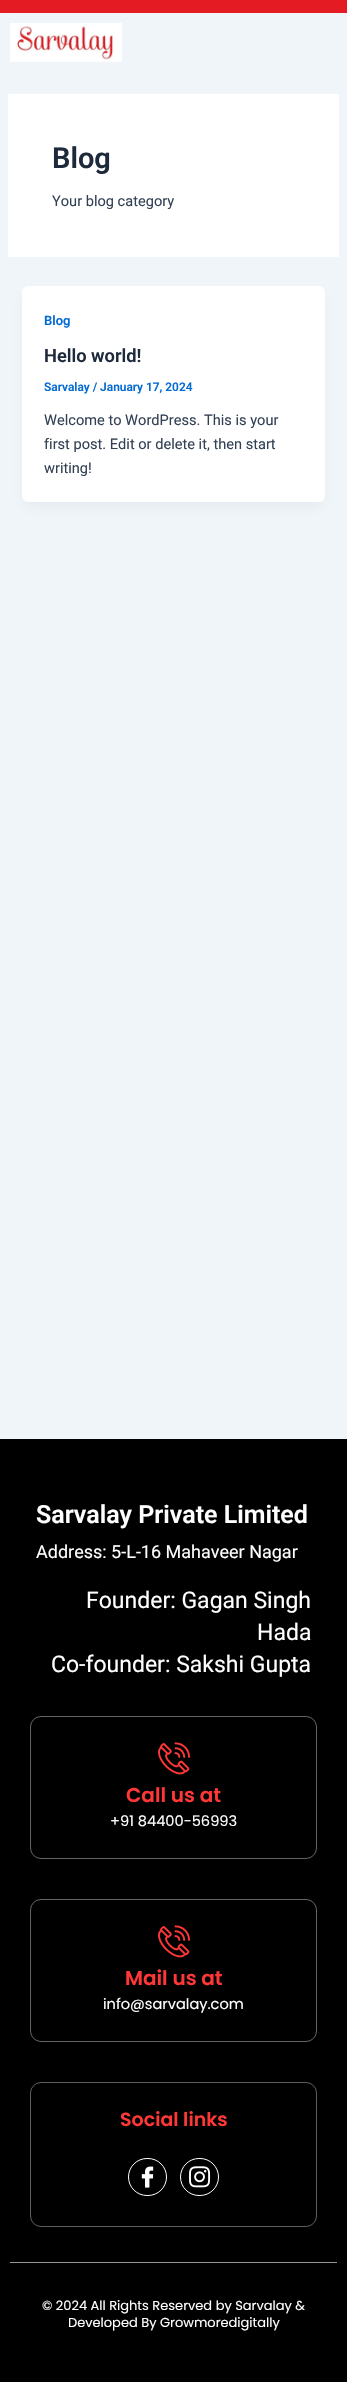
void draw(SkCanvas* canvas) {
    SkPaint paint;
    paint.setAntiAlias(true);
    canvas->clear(0xFFF0F5FA);
    paint.setColor(0xFFE51B23);
    canvas->drawRect(SkRect::MakeXYWH(0, 0, 347, 13), paint);
    canvas->drawImageRect(SkImages::DeferredFromEncodedData(SkData::MakeFromFileName("img1.png")), SkRect::MakeXYWH(10, 23, 112, 39), SkSamplingOptions());
    paint.setColor(0xFFFFFFFF);
    canvas->drawRect(SkRect::MakeXYWH(8, 94, 331, 163), paint);
    SkFont font1(fontMgr->matchFamilyStyle("Roboto", SkFontStyle(600, SkFontStyle::kNormal_Width, SkFontStyle::kUpright_Slant)), 29);
    font1.setSubpixel(true);
    paint.setColor(0xFF1E293B);
    canvas->drawString("Blog", 52, 168, font1, paint);
    SkFont font2(fontMgr->matchFamilyStyle("Roboto", SkFontStyle::Normal()), 14.6f);
    font2.setSubpixel(true);
    paint.setColor(0xFF334155);
    canvas->drawString("Your blog category", 52, 206, font2, paint);
    paint.setColor(0x0D101828);
    paint.setMaskFilter(SkMaskFilter::MakeBlur(kNormal_SkBlurStyle, 7.5f));
    canvas->drawRoundRect(SkRect::MakeXYWH(24, 294, 299, 212), 4, 4, paint);
    paint.setMaskFilter(nullptr);
    paint.setColor(0xFFFFFFFF);
    canvas->drawRoundRect(SkRect::MakeXYWH(22, 286, 303, 216), 6, 6, paint);
    SkFont font3(fontMgr->matchFamilyStyle("Roboto", SkFontStyle(600, SkFontStyle::kNormal_Width, SkFontStyle::kUpright_Slant)), 13);
    font3.setSubpixel(true);
    paint.setColor(0xFF046BD2);
    canvas->drawString("Blog", 44, 325, font3, paint);
    SkFont font4(fontMgr->matchFamilyStyle("Roboto", SkFontStyle(600, SkFontStyle::kNormal_Width, SkFontStyle::kUpright_Slant)), 18.25f);
    font4.setSubpixel(true);
    paint.setColor(0xFF1E293B);
    canvas->drawString("Hello world!", 44, 362, font4, paint);
    SkFont font5(fontMgr->matchFamilyStyle("Roboto", SkFontStyle(600, SkFontStyle::kNormal_Width, SkFontStyle::kUpright_Slant)), 11.9f);
    font5.setSubpixel(true);
    paint.setColor(0xFF046BD2);
    canvas->drawString("Sarvalay / January 17, 2024", 44, 391, font5, paint);
    paint.setColor(0xFF334155);
    canvas->drawString("Welcome to WordPress. This is your", 44, 425, font2, paint);
    canvas->drawString("first post. Edit or delete it, then start", 44, 449, font2, paint);
    canvas->drawString("writing!", 44, 473, font2, paint);
    paint.setColor(0xFF000000);
    canvas->drawRect(SkRect::MakeXYWH(0, 1439, 347, 943), paint);
    SkFont font6(fontMgr->matchFamilyStyle("Roboto", SkFontStyle(600, SkFontStyle::kNormal_Width, SkFontStyle::kUpright_Slant)), 25);
    font6.setSubpixel(true);
    paint.setColor(0xFFFFFFFF);
    canvas->drawString("Sarvalay Private Limited", 36, 1523, font6, paint);
    SkFont font7(fontMgr->matchFamilyStyle("Roboto", SkFontStyle::Normal()), 18);
    font7.setSubpixel(true);
    canvas->drawString("Address: 5-L-16 Mahaveer Nagar", 36, 1558, font7, paint);
    SkFont font8(fontMgr->matchFamilyStyle("Roboto", SkFontStyle::Normal()), 23);
    font8.setSubpixel(true);
    canvas->drawString("Founder: Gagan Singh", 86, 1608, font8, paint);
    canvas->drawString("Hada", 257, 1640, font8, paint);
    canvas->drawString("Co-founder: Sakshi Gupta", 51, 1672, font8, paint);
    paint.setStyle(SkPaint::kStroke_Style);
    paint.setStrokeWidth(1);
    paint.setColor(0xFF646464);
    canvas->drawRoundRect(SkRect::MakeXYWH(30.5f, 1716.5f, 286, 142), 10.5f, 10.5f, paint);
    canvas->drawImageRect(SkImages::DeferredFromEncodedData(SkData::MakeFromFileName("img2.png")), SkRect::MakeXYWH(158, 1742, 32, 33), SkSamplingOptions());
    SkFont font9(fontMgr->matchFamilyStyle("Poppins", SkFontStyle(600, SkFontStyle::kNormal_Width, SkFontStyle::kUpright_Slant)), 20);
    font9.setSubpixel(true);
    paint.setStyle(SkPaint::kFill_Style);
    paint.setColor(0xFFFF3737);
    canvas->drawString("Call us at", 126, 1802, font9, paint);
    SkFont font10(fontMgr->matchFamilyStyle("Poppins", SkFontStyle::Normal()), 14.6f);
    font10.setSubpixel(true);
    paint.setColor(0xFFFFFFFF);
    canvas->drawString("+91 84400-56993", 110, 1826, font10, paint);
    paint.setStyle(SkPaint::kStroke_Style);
    paint.setColor(0xFF646464);
    canvas->drawRoundRect(SkRect::MakeXYWH(30.5f, 1899.5f, 286, 142), 10.5f, 10.5f, paint);
    canvas->drawImageRect(SkImages::DeferredFromEncodedData(SkData::MakeFromFileName("img2.png")), SkRect::MakeXYWH(158, 1925, 32, 33), SkSamplingOptions());
    paint.setStyle(SkPaint::kFill_Style);
    paint.setColor(0xFFFF3737);
    canvas->drawString("Mail us at", 125, 1985, font9, paint);
    paint.setColor(0xFFFFFFFF);
    canvas->drawString("info@sarvalay.com", 103, 2009, font10, paint);
    paint.setStyle(SkPaint::kStroke_Style);
    paint.setColor(0xFF5E5E5E);
    canvas->drawRoundRect(SkRect::MakeXYWH(30.5f, 2082.5f, 286, 144), 10.5f, 10.5f, paint);
    SkFont font11(fontMgr->matchFamilyStyle("Poppins", SkFontStyle(600, SkFontStyle::kNormal_Width, SkFontStyle::kUpright_Slant)), 19);
    font11.setSubpixel(true);
    paint.setStyle(SkPaint::kFill_Style);
    paint.setColor(0xFFFF3737);
    canvas->drawString("Social links", 120, 2126, font11, paint);
    paint.setStyle(SkPaint::kStroke_Style);
    paint.setColor(0xFFFFFFFF);
    canvas->drawRoundRect(SkRect::MakeXYWH(128.5f, 2158.5f, 38, 37), 18.5f, 18.5f, paint);
    canvas->drawImageRect(SkImages::DeferredFromEncodedData(SkData::MakeFromFileName("img3.png")), SkRect::MakeXYWH(141, 2166, 13, 22), SkSamplingOptions());
    canvas->drawRoundRect(SkRect::MakeXYWH(180.5f, 2158.5f, 38, 37), 18.5f, 18.5f, paint);
    canvas->drawImageRect(SkImages::DeferredFromEncodedData(SkData::MakeFromFileName("img4.png")), SkRect::MakeXYWH(189, 2166, 22, 22), SkSamplingOptions());
    paint.setStyle(SkPaint::kFill_Style);
    paint.setColor(0xFF959595);
    canvas->drawRect(SkRect::MakeXYWH(10, 2262, 327, 1), paint);
    SkFont font12(fontMgr->matchFamilyStyle("Poppins", SkFontStyle::Normal()), 13);
    font12.setSubpixel(true);
    paint.setColor(0xFFFFFFFF);
    canvas->drawString("© 2024 All Rights Reserved by Sarvalay &", 42, 2310, font12, paint);
    canvas->drawString("Developed By Growmoredigitally", 68, 2327, font12, paint);
}
